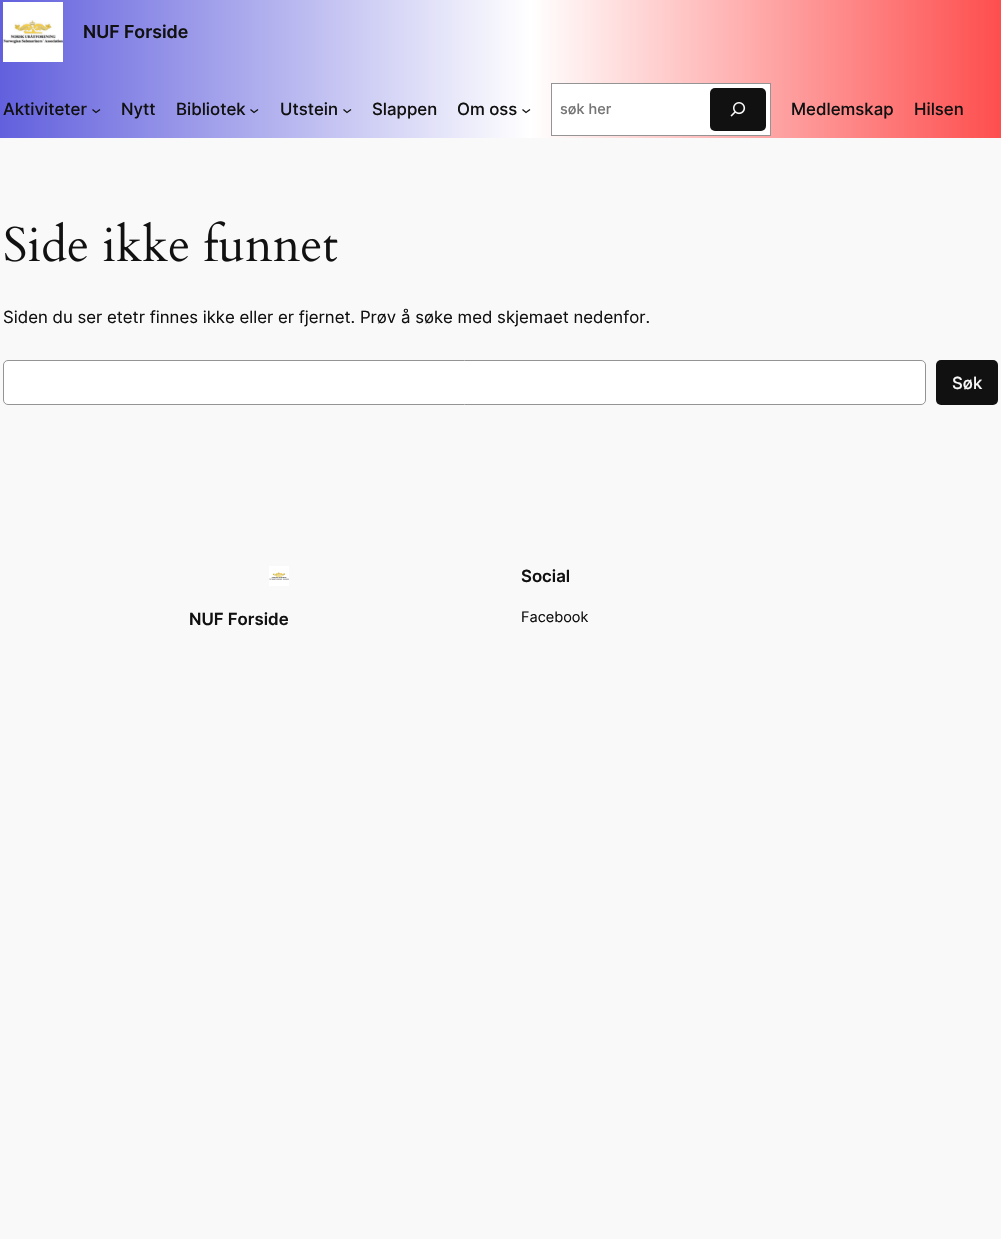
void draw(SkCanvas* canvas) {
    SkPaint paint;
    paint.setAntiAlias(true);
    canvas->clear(0xFFF9F9F9);
    {
        const SkColor colors[] = {0xFF6260DD, 0xFFFFFFFF, 0xFFFE4E4E};
        const float stops[] = {0, 0.53f, 1};
        const SkPoint ends[] = {{0, 69}, {1001, 69}};
        paint.setShader(SkGradientShader::MakeLinear(ends, colors, stops, 3, SkTileMode::kClamp));
        paint.setAlpha(255);
    }
    canvas->drawRect(SkRect::MakeXYWH(0, 0, 1001, 138), paint);
    canvas->drawImageRect(SkImages::DeferredFromEncodedData(SkData::MakeFromFileName("img1.png")), SkRect::MakeXYWH(3, 2, 60, 60), SkSamplingOptions());
    SkFont font1(fontMgr->matchFamilyStyle("Inter", SkFontStyle(600, SkFontStyle::kNormal_Width, SkFontStyle::kUpright_Slant)), 17.75f);
    font1.setSubpixel(true);
    paint.setShader(nullptr);
    paint.setColor(0xFF111111);
    canvas->drawString("NUF Forside", 83, 38, font1, paint);
    SkFont font2(fontMgr->matchFamilyStyle("Inter", SkFontStyle(500, SkFontStyle::kNormal_Width, SkFontStyle::kUpright_Slant)), 16.8f);
    font2.setSubpixel(true);
    canvas->drawString("Aktiviteter", 3, 115, font2, paint);
    paint.setStyle(SkPaint::kStroke_Style);
    paint.setStrokeWidth(1.3f);
    canvas->drawPath(SkPathBuilder().moveTo(92.5f, 109.5f).lineTo(96, 112.5f).lineTo(100, 109.5f).detach(), paint);
    paint.setStyle(SkPaint::kFill_Style);
    canvas->drawString("Nytt", 121, 115, font2, paint);
    canvas->drawString("Bibliotek", 176, 115, font2, paint);
    paint.setStyle(SkPaint::kStroke_Style);
    canvas->drawPath(SkPathBuilder().moveTo(250.5f, 109.5f).lineTo(254, 112.5f).lineTo(258, 109.5f).detach(), paint);
    paint.setStyle(SkPaint::kFill_Style);
    canvas->drawString("Utstein", 280, 115, font2, paint);
    paint.setStyle(SkPaint::kStroke_Style);
    canvas->drawPath(SkPathBuilder().moveTo(343.5f, 109.5f).lineTo(347, 112.5f).lineTo(351, 109.5f).detach(), paint);
    paint.setStyle(SkPaint::kFill_Style);
    canvas->drawString("Slappen", 372, 115, font2, paint);
    canvas->drawString("Om oss", 457, 115, font2, paint);
    paint.setStyle(SkPaint::kStroke_Style);
    canvas->drawPath(SkPathBuilder().moveTo(522.5f, 109.5f).lineTo(526, 112.5f).lineTo(530, 109.5f).detach(), paint);
    paint.setStyle(SkPaint::kFill_Style);
    paint.setColor(0xFFFFFFFF);
    canvas->drawRect(SkRect::MakeXYWH(551.5f, 83.5f, 219, 52), paint);
    paint.setStyle(SkPaint::kStroke_Style);
    paint.setStrokeWidth(1);
    paint.setColor(0xFF949494);
    canvas->drawRect(SkRect::MakeXYWH(551.5f, 83.5f, 219, 52), paint);
    SkFont font3(fontMgr->matchFamilyStyle("Inter", SkFontStyle(500, SkFontStyle::kNormal_Width, SkFontStyle::kUpright_Slant)), 14.5f);
    font3.setSubpixel(true);
    paint.setStyle(SkPaint::kFill_Style);
    paint.setColor(0xFF757575);
    canvas->drawString("søk her", 560, 114, font3, paint);
    paint.setColor(0xFF111111);
    canvas->drawRoundRect(SkRect::MakeXYWH(710, 88, 56, 43), 5, 5, paint);
    canvas->drawImageRect(SkImages::DeferredFromEncodedData(SkData::MakeFromFileName("img2.png")), SkRect::MakeXYWH(730, 102, 16, 15), SkSamplingOptions());
    canvas->drawString("Medlemskap", 791, 115, font2, paint);
    canvas->drawString("Hilsen", 914, 115, font2, paint);
    canvas->drawImageRect(SkImages::DeferredFromEncodedData(SkData::MakeFromFileName("img3.png")), SkRect::MakeXYWH(5, 221, 333, 41), SkSamplingOptions());
    SkFont font4(fontMgr->matchFamilyStyle("Inter", SkFontStyle::Normal()), 16.8f);
    font4.setSubpixel(true);
    canvas->drawString("Siden du ser etetr finnes ikke eller er fjernet. Prøv å søke med skjemaet nedenfor.", 3, 323, font4, paint);
    paint.setColor(0xFFFFFFFF);
    canvas->drawRoundRect(SkRect::MakeXYWH(3.5f, 360.5f, 922, 44), 4.5f, 4.5f, paint);
    paint.setStyle(SkPaint::kStroke_Style);
    paint.setColor(0xFF949494);
    canvas->drawRoundRect(SkRect::MakeXYWH(3.5f, 360.5f, 922, 44), 4.5f, 4.5f, paint);
    paint.setStyle(SkPaint::kFill_Style);
    paint.setColor(0xFF111111);
    canvas->drawRoundRect(SkRect::MakeXYWH(936, 360, 62, 45), 5, 5, paint);
    paint.setColor(0xFFF9F9F9);
    canvas->drawString("Søk", 952, 389, font2, paint);
    canvas->drawImageRect(SkImages::DeferredFromEncodedData(SkData::MakeFromFileName("img4.png")), SkRect::MakeXYWH(269, 566, 20, 20), SkSamplingOptions());
    SkFont font5(fontMgr->matchFamilyStyle("Inter", SkFontStyle(600, SkFontStyle::kNormal_Width, SkFontStyle::kUpright_Slant)), 16.8f);
    font5.setSubpixel(true);
    paint.setColor(0xFF111111);
    canvas->drawString("NUF Forside", 189, 625, font5, paint);
    canvas->drawString("Social", 521, 582, font5, paint);
    SkFont font6(fontMgr->matchFamilyStyle("Inter", SkFontStyle::Normal()), 14.5f);
    font6.setSubpixel(true);
    canvas->drawString("Facebook", 521, 622, font6, paint);
}
